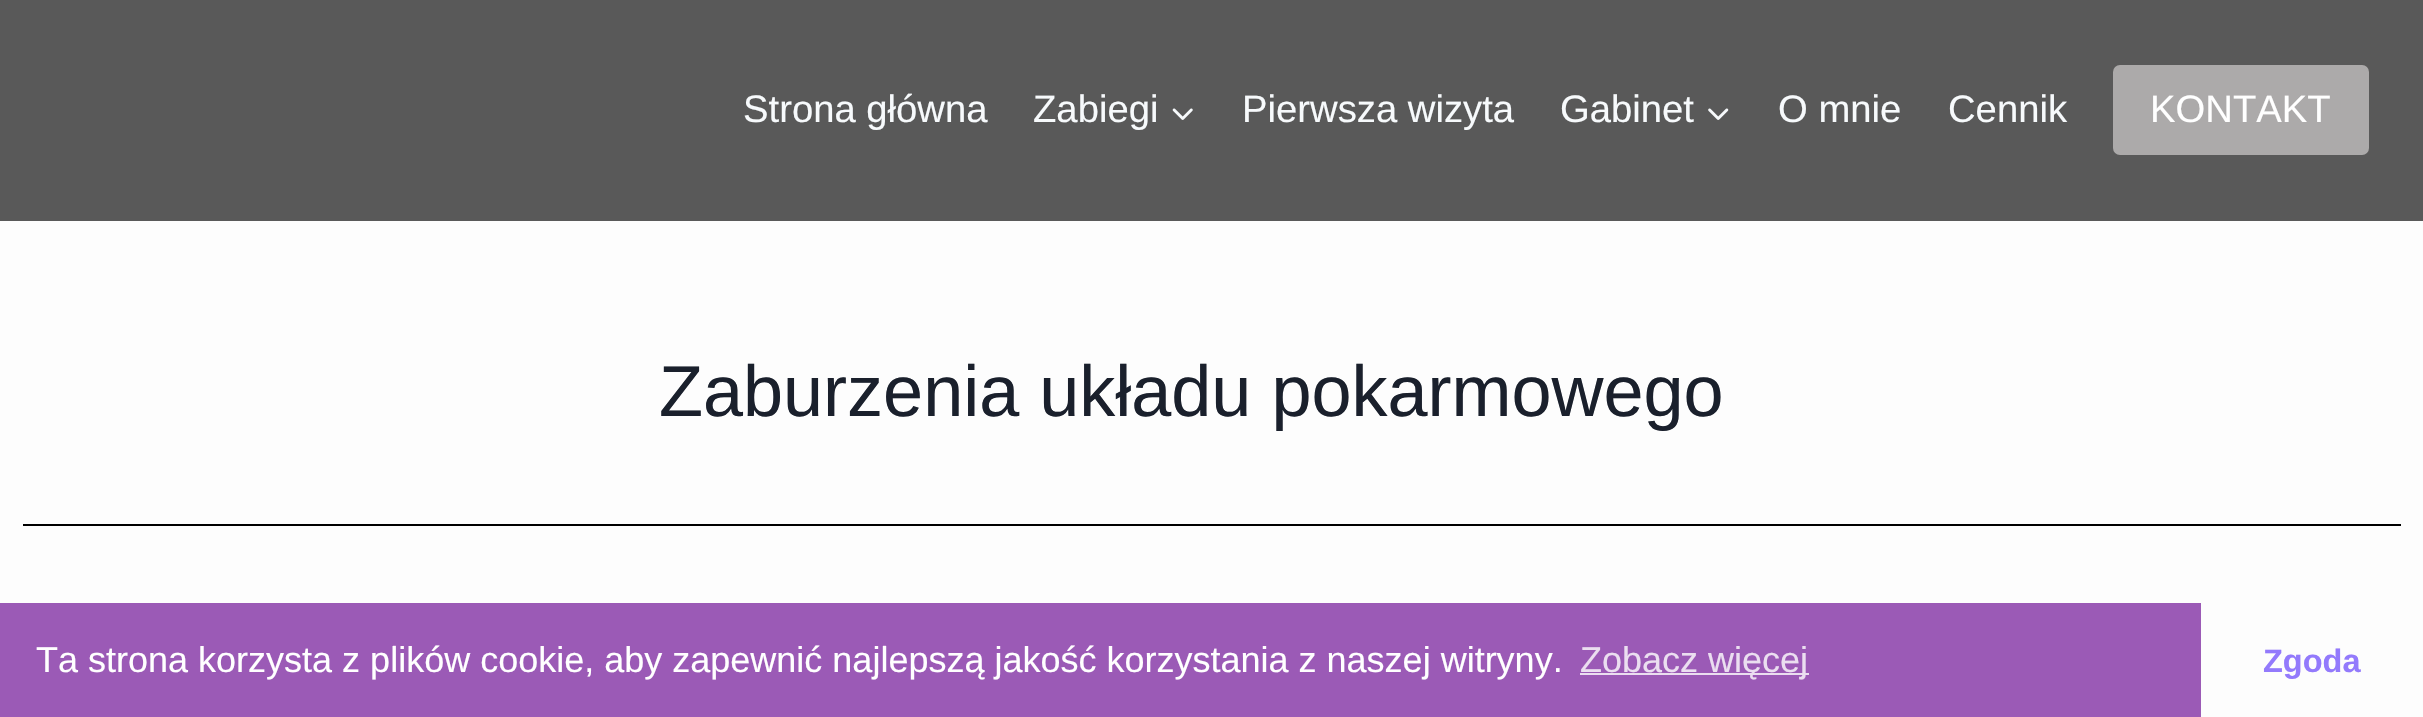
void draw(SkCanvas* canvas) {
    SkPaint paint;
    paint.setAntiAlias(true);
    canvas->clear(0xFFFDFDFD);
    paint.setColor(0xFF595959);
    canvas->drawRect(SkRect::MakeXYWH(0, 0, 2423, 221), paint);
    SkFont font1(fontMgr->matchFamilyStyle("Liberation Sans", SkFontStyle::Normal()), 38.25f);
    font1.setSubpixel(true);
    paint.setColor(0xFFF7FAFC);
    canvas->drawString("Strona główna", 743, 122, font1, paint);
    canvas->drawString("Zabiegi", 1033, 122, font1, paint);
    canvas->drawImageRect(SkImages::DeferredFromEncodedData(SkData::MakeFromFileName("img1.png")), SkRect::MakeXYWH(1172, 108, 21, 12), SkSamplingOptions());
    canvas->drawString("Pierwsza wizyta", 1242, 122, font1, paint);
    canvas->drawString("Gabinet", 1560, 122, font1, paint);
    canvas->drawImageRect(SkImages::DeferredFromEncodedData(SkData::MakeFromFileName("img2.png")), SkRect::MakeXYWH(1708, 108, 21, 12), SkSamplingOptions());
    canvas->drawString("O mnie", 1778, 122, font1, paint);
    canvas->drawString("Cennik", 1948, 122, font1, paint);
    paint.setColor(0xFFACAAAA);
    canvas->drawRoundRect(SkRect::MakeXYWH(2113, 65, 256, 90), 7, 7, paint);
    paint.setColor(0xFFFFFFFF);
    canvas->drawString("KONTAKT", 2150, 122, font1, paint);
    SkFont font2(fontMgr->matchFamilyStyle("Liberation Sans", SkFontStyle::Normal()), 72);
    font2.setSubpixel(true);
    paint.setColor(0xFF1A202C);
    canvas->drawString("Zaburzenia układu pokarmowego", 659, 416, font2, paint);
    paint.setColor(0xFF000000);
    canvas->drawRect(SkRect::MakeXYWH(23, 524, 2378, 2), paint);
    paint.setColor(0xFF9B5AB6);
    canvas->drawRect(SkRect::MakeXYWH(0, 603, 2201, 114), paint);
    SkFont font3(fontMgr->matchFamilyStyle("Liberation Sans", SkFontStyle::Normal()), 36);
    font3.setSubpixel(true);
    paint.setColor(0xFFFFFFFF);
    canvas->drawString("Ta strona korzysta z plików cookie, aby zapewnić najlepszą jakość korzystania z naszej witryny.", 36, 672, font3, paint);
    paint.setColor(0xFFEBDEF0);
    canvas->drawRect(SkRect::MakeXYWH(1580, 673, 229, 2), paint);
    canvas->drawString("Zobacz więcej", 1580, 672, font3, paint);
    SkFont font4(fontMgr->matchFamilyStyle("Liberation Sans", SkFontStyle::Bold()), 32.5f);
    font4.setSubpixel(true);
    paint.setColor(0xFF937AFC);
    canvas->drawString("Zgoda", 2263, 672, font4, paint);
}
